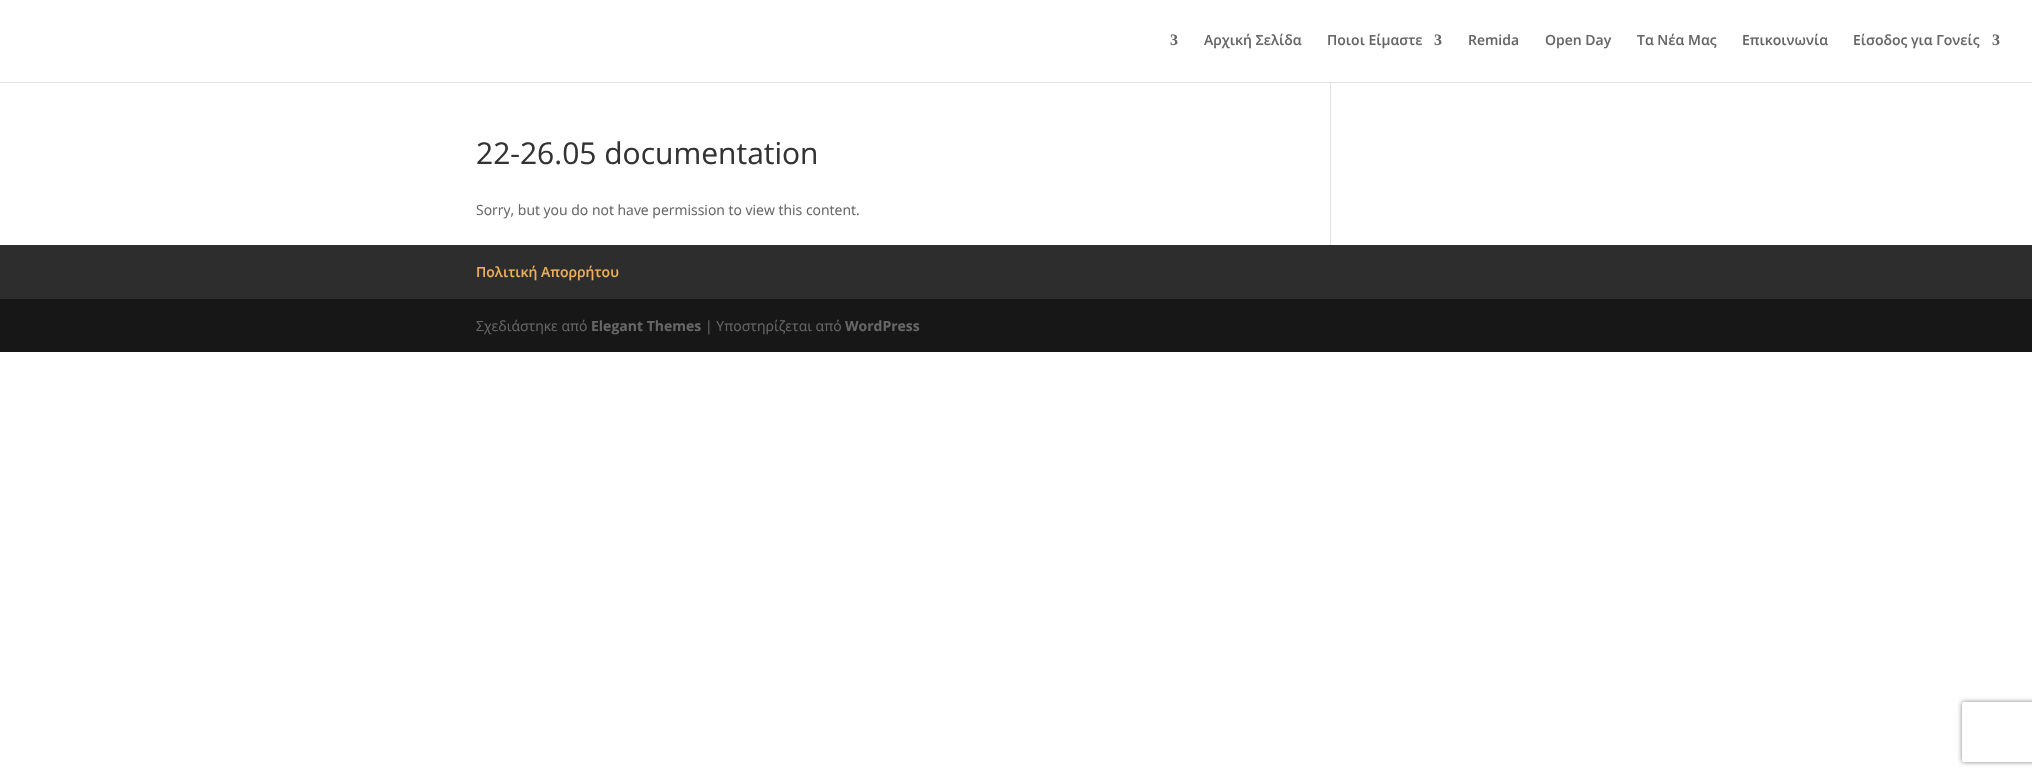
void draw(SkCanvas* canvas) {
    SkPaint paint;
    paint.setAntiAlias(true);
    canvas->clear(0xFFFFFFFF);
    paint.setColor(0xFFE6E6E6);
    canvas->drawRect(SkRect::MakeXYWH(0, 82, 2032, 1), paint);
    paint.setColor(0xFFE2E2E2);
    canvas->drawRect(SkRect::MakeXYWH(1330, 80, 1, 165), paint);
    paint.setColor(0xFFFFFFFF);
    canvas->drawRect(SkRect::MakeXYWH(1330, 80, 1, 2), paint);
    SkFont font1(fontMgr->matchFamilyStyle("Liberation Serif", SkFontStyle::Bold()), 16);
    font1.setSubpixel(true);
    paint.setColor(0xFF666666);
    canvas->drawString("3", 1170, 45, font1, paint);
    SkFont font2(fontMgr->matchFamilyStyle("Open Sans", SkFontStyle(600, SkFontStyle::kNormal_Width, SkFontStyle::kUpright_Slant)), 14);
    font2.setSubpixel(true);
    canvas->drawString("Αρχική Σελίδα", 1204, 45, font2, paint);
    canvas->drawString("Ποιοι Είμαστε", 1327, 45, font2, paint);
    canvas->drawString("3", 1434, 45, font1, paint);
    canvas->drawString("Remida", 1468, 45, font2, paint);
    canvas->drawString("Open Day", 1545, 45, font2, paint);
    canvas->drawString("Τα Νέα Μας", 1637, 45, font2, paint);
    canvas->drawString("Επικοινωνία", 1742, 45, font2, paint);
    canvas->drawString("Είσοδος για Γονείς", 1853, 45, font2, paint);
    canvas->drawString("3", 1992, 45, font1, paint);
    SkFont font3(fontMgr->matchFamilyStyle("Open Sans", SkFontStyle::Normal()), 30);
    font3.setSubpixel(true);
    paint.setColor(0xFF333333);
    canvas->drawString("22-26.05 documentation", 476, 164, font3, paint);
    SkFont font4(fontMgr->matchFamilyStyle("Open Sans", SkFontStyle::Normal()), 14);
    font4.setSubpixel(true);
    paint.setColor(0xFF666666);
    canvas->drawString("Sorry, but you do not have permission to view this content.", 476, 215, font4, paint);
    paint.setColor(0xFFCBCBCB);
    canvas->drawRect(SkRect::MakeXYWH(1330, 82, 1, 1), paint);
    paint.setColor(0xFF2D2D2D);
    canvas->drawRect(SkRect::MakeXYWH(0, 245, 2032, 54), paint);
    paint.setColor(0xFFEDB059);
    canvas->drawString("Πολιτική Απορρήτου", 476, 277, font2, paint);
    paint.setColor(0xFF171717);
    canvas->drawRect(SkRect::MakeXYWH(0, 299, 2032, 53), paint);
    paint.setColor(0xFF666666);
    canvas->drawString("Σχεδιάστηκε από", 476, 331, font4, paint);
    SkFont font5(fontMgr->matchFamilyStyle("Open Sans", SkFontStyle::Bold()), 14);
    font5.setSubpixel(true);
    canvas->drawString("Elegant Themes", 591, 331, font5, paint);
    canvas->drawString("| Υποστηρίζεται από", 705, 331, font4, paint);
    canvas->drawString("WordPress", 845, 331, font5, paint);
    canvas->save();
    canvas->clipPath(SkPathBuilder(SkPathFillType::kEvenOdd).moveTo(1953, 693).lineTo(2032, 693).lineTo(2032, 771).lineTo(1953, 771).close().moveTo(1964, 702).lineTo(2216, 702).cubicTo(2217, 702, 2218, 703, 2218, 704).lineTo(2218, 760).cubicTo(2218, 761, 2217, 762, 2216, 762).lineTo(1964, 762).cubicTo(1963, 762, 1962, 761, 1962, 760).lineTo(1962, 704).cubicTo(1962, 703, 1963, 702, 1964, 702).close().detach(), true);
    paint.setColor(0xFF808080);
    paint.setMaskFilter(SkMaskFilter::MakeBlur(kNormal_SkBlurStyle, 2.5f));
    canvas->drawRoundRect(SkRect::MakeXYWH(1962, 702, 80, 60), 2, 2, paint);
    paint.setMaskFilter(nullptr);
    canvas->restore();
}
